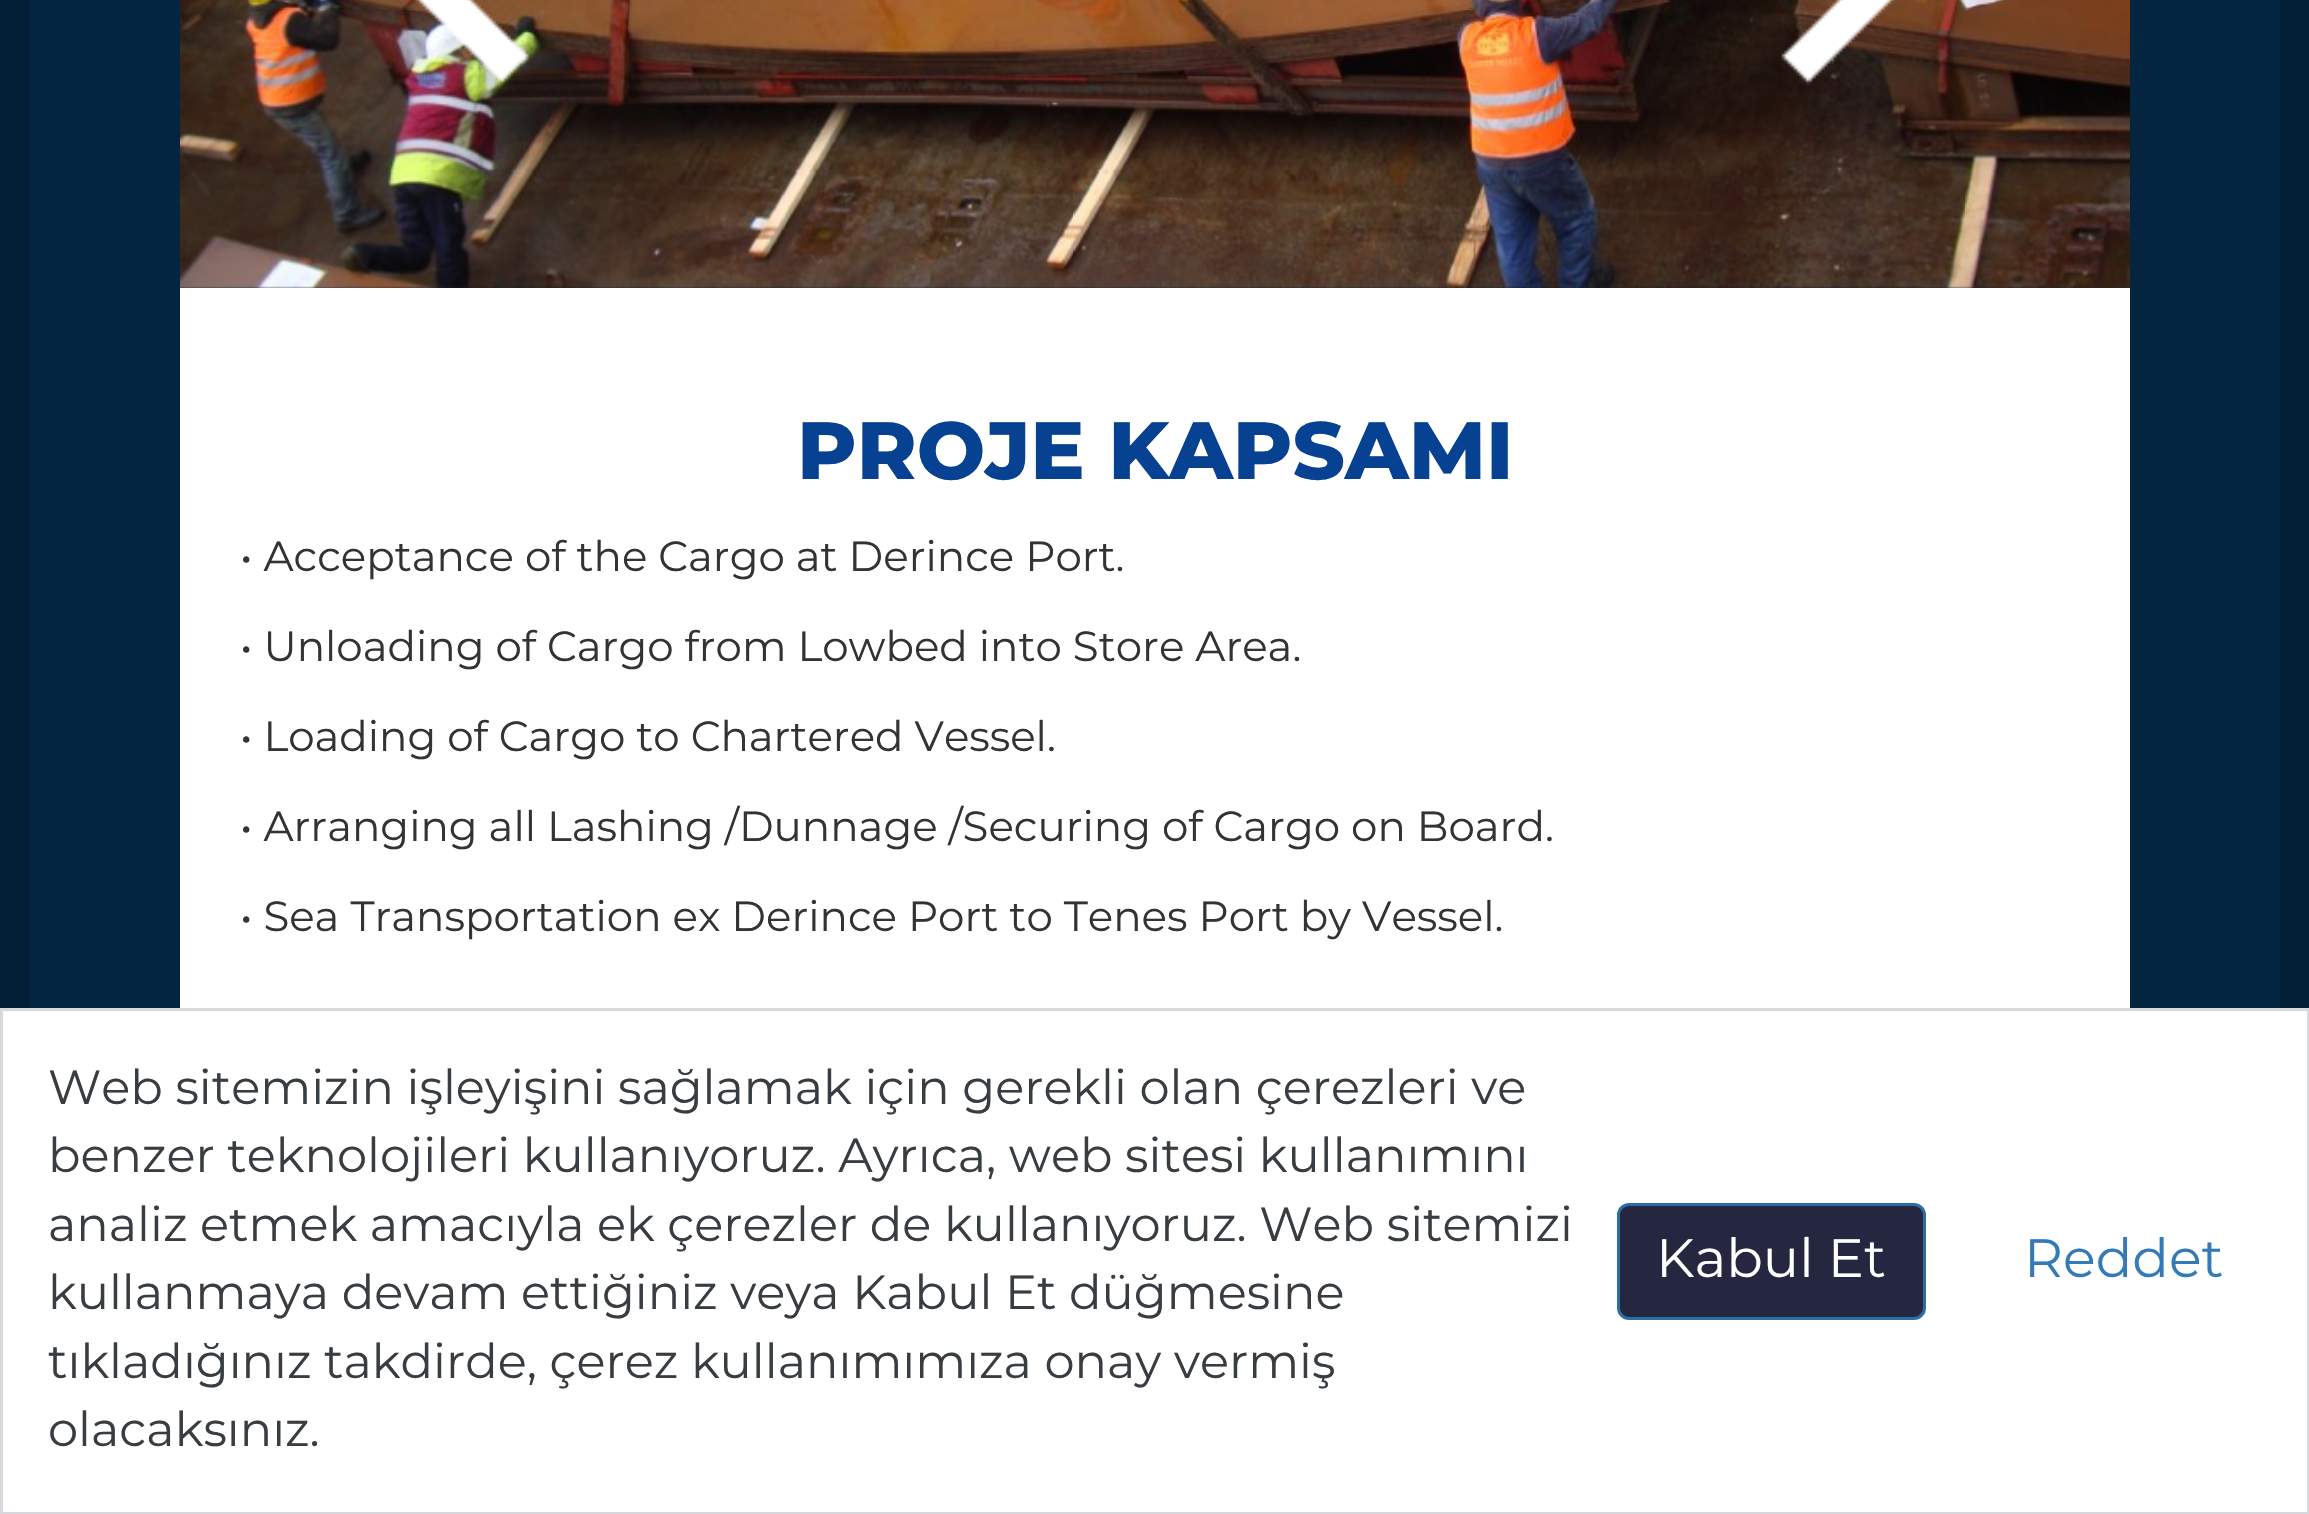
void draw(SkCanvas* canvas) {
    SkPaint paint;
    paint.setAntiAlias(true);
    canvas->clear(0xFF031F35);
    paint.setColor(0xFF032540);
    canvas->drawRect(SkRect::MakeXYWH(30, 0, 2250, 1008), paint);
    canvas->drawImageRect(SkImages::DeferredFromEncodedData(SkData::MakeFromFileName("img1.png")), SkRect::MakeXYWH(180, 0, 1950, 288), SkSamplingOptions());
    canvas->drawImageRect(SkImages::DeferredFromEncodedData(SkData::MakeFromFileName("img2.png")), SkRect::MakeXYWH(414, 0, 115, 85), SkSamplingOptions());
    canvas->drawImageRect(SkImages::DeferredFromEncodedData(SkData::MakeFromFileName("img3.png")), SkRect::MakeXYWH(1781, 0, 115, 85), SkSamplingOptions());
    paint.setColor(0xFFFFFFFF);
    canvas->drawRect(SkRect::MakeXYWH(180, 288, 1950, 720), paint);
    SkFont font1(fontMgr->matchFamilyStyle("Montserrat", SkFontStyle(800, SkFontStyle::kNormal_Width, SkFontStyle::kUpright_Slant)), 81);
    font1.setSubpixel(true);
    paint.setColor(0xFF064192);
    canvas->drawString("PROJE KAPSAMI", 797, 479, font1, paint);
    SkFont font2(fontMgr->matchFamilyStyle("Montserrat", SkFontStyle::Normal()), 42);
    font2.setSubpixel(true);
    paint.setColor(0xFF333333);
    canvas->drawString("• Acceptance of the Cargo at Derince Port.", 240, 571, font2, paint);
    canvas->drawString("• Unloading of Cargo from Lowbed into Store Area.", 240, 661, font2, paint);
    canvas->drawString("• Loading of Cargo to Chartered Vessel.", 240, 751, font2, paint);
    canvas->drawString("• Arranging all Lashing /Dunnage /Securing of Cargo on Board.", 240, 841, font2, paint);
    canvas->drawString("• Sea Transportation ex Derince Port to Tenes Port by Vessel.", 240, 931, font2, paint);
    paint.setColor(0xFFFFFFFF);
    canvas->drawRect(SkRect::MakeXYWH(1.5f, 1009.5f, 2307, 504), paint);
    paint.setStyle(SkPaint::kStroke_Style);
    paint.setStrokeWidth(3);
    paint.setColor(0xFFD6D8DB);
    canvas->drawRect(SkRect::MakeXYWH(1.5f, 1009.5f, 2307, 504), paint);
    SkFont font3(fontMgr->matchFamilyStyle("Montserrat", SkFontStyle::Normal()), 48);
    font3.setSubpixel(true);
    paint.setStyle(SkPaint::kFill_Style);
    paint.setColor(0xFF383D41);
    canvas->drawString("Web sitemizin işleyişini sağlamak için gerekli olan çerezleri ve", 48, 1104, font3, paint);
    canvas->drawString("benzer teknolojileri kullanıyoruz. Ayrıca, web sitesi kullanımını", 48, 1172, font3, paint);
    canvas->drawString("analiz etmek amacıyla ek çerezler de kullanıyoruz. Web sitemizi", 48, 1241, font3, paint);
    canvas->drawString("kullanmaya devam ettiğiniz veya Kabul Et düğmesine", 48, 1309, font3, paint);
    canvas->drawString("tıkladığınız takdirde, çerez kullanımımıza onay vermiş", 48, 1378, font3, paint);
    canvas->drawString("olacaksınız.", 48, 1446, font3, paint);
    paint.setColor(0xFF24273F);
    canvas->drawRoundRect(SkRect::MakeXYWH(1618.5f, 1204.5f, 306, 114), 10.5f, 10.5f, paint);
    paint.setStyle(SkPaint::kStroke_Style);
    paint.setColor(0xFF2E6DA4);
    canvas->drawRoundRect(SkRect::MakeXYWH(1618.5f, 1204.5f, 306, 114), 10.5f, 10.5f, paint);
    SkFont font4(fontMgr->matchFamilyStyle("Montserrat", SkFontStyle::Normal()), 54);
    font4.setSubpixel(true);
    paint.setStyle(SkPaint::kFill_Style);
    paint.setColor(0xFFFFFFFF);
    canvas->drawString("Kabul Et", 1656, 1277, font4, paint);
    paint.setColor(0xFF337AB7);
    canvas->drawString("Reddet", 2024, 1277, font4, paint);
}
